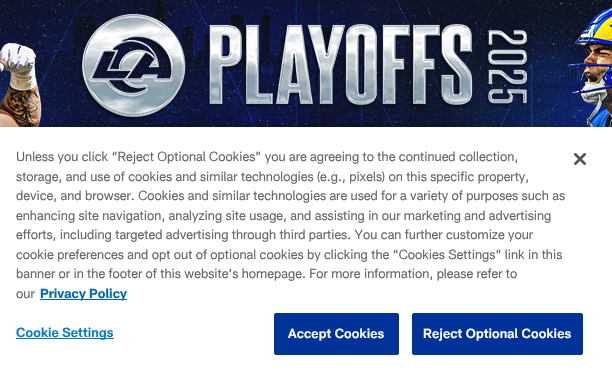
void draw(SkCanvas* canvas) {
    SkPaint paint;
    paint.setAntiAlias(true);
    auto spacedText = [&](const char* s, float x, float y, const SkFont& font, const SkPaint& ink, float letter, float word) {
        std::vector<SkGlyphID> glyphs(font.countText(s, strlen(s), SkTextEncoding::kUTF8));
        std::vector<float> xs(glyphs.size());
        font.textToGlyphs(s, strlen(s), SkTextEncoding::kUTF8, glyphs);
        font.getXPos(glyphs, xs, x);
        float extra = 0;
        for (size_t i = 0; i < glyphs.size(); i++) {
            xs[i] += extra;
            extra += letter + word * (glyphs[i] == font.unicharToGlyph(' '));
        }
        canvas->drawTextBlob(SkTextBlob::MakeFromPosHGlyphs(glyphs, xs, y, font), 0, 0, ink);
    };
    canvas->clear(0xFFFFFFFF);
    canvas->drawImageRect(SkImages::DeferredFromEncodedData(SkData::MakeFromFileName("img1.png")), SkRect::MakeXYWH(0, 0, 612, 127), SkSamplingOptions());
    paint.setColor(0x33000000);
    paint.setMaskFilter(SkMaskFilter::MakeBlur(kNormal_SkBlurStyle, 9));
    canvas->drawRect(SkRect::MakeXYWH(0, 127, 612, 247), paint);
    paint.setMaskFilter(nullptr);
    paint.setColor(0xFFFFFFFF);
    canvas->drawRect(SkRect::MakeXYWH(0, 127, 612, 247), paint);
    SkFont font1(fontMgr->matchFamilyStyle("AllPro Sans", SkFontStyle::Normal()), 13);
    font1.setSubpixel(true);
    paint.setColor(0xFF666666);
    canvas->drawString("Unless you click “Reject Optional Cookies” you are agreeing to the continued collection,", 16, 161, font1, paint);
    canvas->drawString("storage, and use of cookies and similar technologies (e.g., pixels) on this specific property,", 16, 181, font1, paint);
    canvas->drawString("device, and browser. Cookies and similar technologies are used for a variety of purposes such as", 16, 200, font1, paint);
    canvas->drawString("enhancing site navigation, analyzing site usage, and assisting in our marketing and advertising", 16, 220, font1, paint);
    canvas->drawString("efforts, including targeted advertising through third parties. You can further customize your", 16, 239, font1, paint);
    canvas->drawString("cookie preferences and opt out of optional cookies by clicking the “Cookies Settings” link in this", 16, 259, font1, paint);
    canvas->drawString("banner or in the footer of this website’s homepage. For more information, please refer to", 16, 278, font1, paint);
    canvas->drawString("our", 16, 298, font1, paint);
    paint.setColor(0xFF0067B1);
    canvas->drawRect(SkRect::MakeXYWH(40, 299, 87, 1), paint);
    SkFont font2(fontMgr->matchFamilyStyle("AllPro Sans", SkFontStyle::Bold()), 13);
    font2.setSubpixel(true);
    canvas->drawString("Privacy Policy", 40, 298, font2, paint);
    paint.setColor(0xFF007DC3);
    canvas->drawRect(SkRect::MakeXYWH(16, 338, 98, 1), paint);
    SkFont font3(fontMgr->matchFamilyStyle("AllPro Sans", SkFontStyle(600, SkFontStyle::kNormal_Width, SkFontStyle::kUpright_Slant)), 13);
    font3.setSubpixel(true);
    spacedText("Cookie Settings", 16, 337, font3, paint, 0.1f, 0);
    paint.setColor(0xFF003399);
    canvas->drawRoundRect(SkRect::MakeXYWH(274.5f, 313.5f, 124, 41), 1.5f, 1.5f, paint);
    paint.setStyle(SkPaint::kStroke_Style);
    paint.setStrokeWidth(1);
    canvas->drawRoundRect(SkRect::MakeXYWH(274.5f, 313.5f, 124, 41), 1.5f, 1.5f, paint);
    paint.setStyle(SkPaint::kFill_Style);
    paint.setColor(0xFFFFFFFF);
    spacedText("Accept Cookies", 288, 338, font3, paint, 0.1f, 0);
    paint.setColor(0xFF003399);
    canvas->drawRoundRect(SkRect::MakeXYWH(412.5f, 313.5f, 170, 41), 1.5f, 1.5f, paint);
    paint.setStyle(SkPaint::kStroke_Style);
    canvas->drawRoundRect(SkRect::MakeXYWH(412.5f, 313.5f, 170, 41), 1.5f, 1.5f, paint);
    paint.setStyle(SkPaint::kFill_Style);
    paint.setColor(0xFFFFFFFF);
    spacedText("Reject Optional Cookies", 423, 338, font3, paint, 0.1f, 0);
    canvas->drawImageRect(SkImages::DeferredFromEncodedData(SkData::MakeFromFileName("img2.png")), SkRect::MakeXYWH(574, 153, 12, 12), SkSamplingOptions());
}
